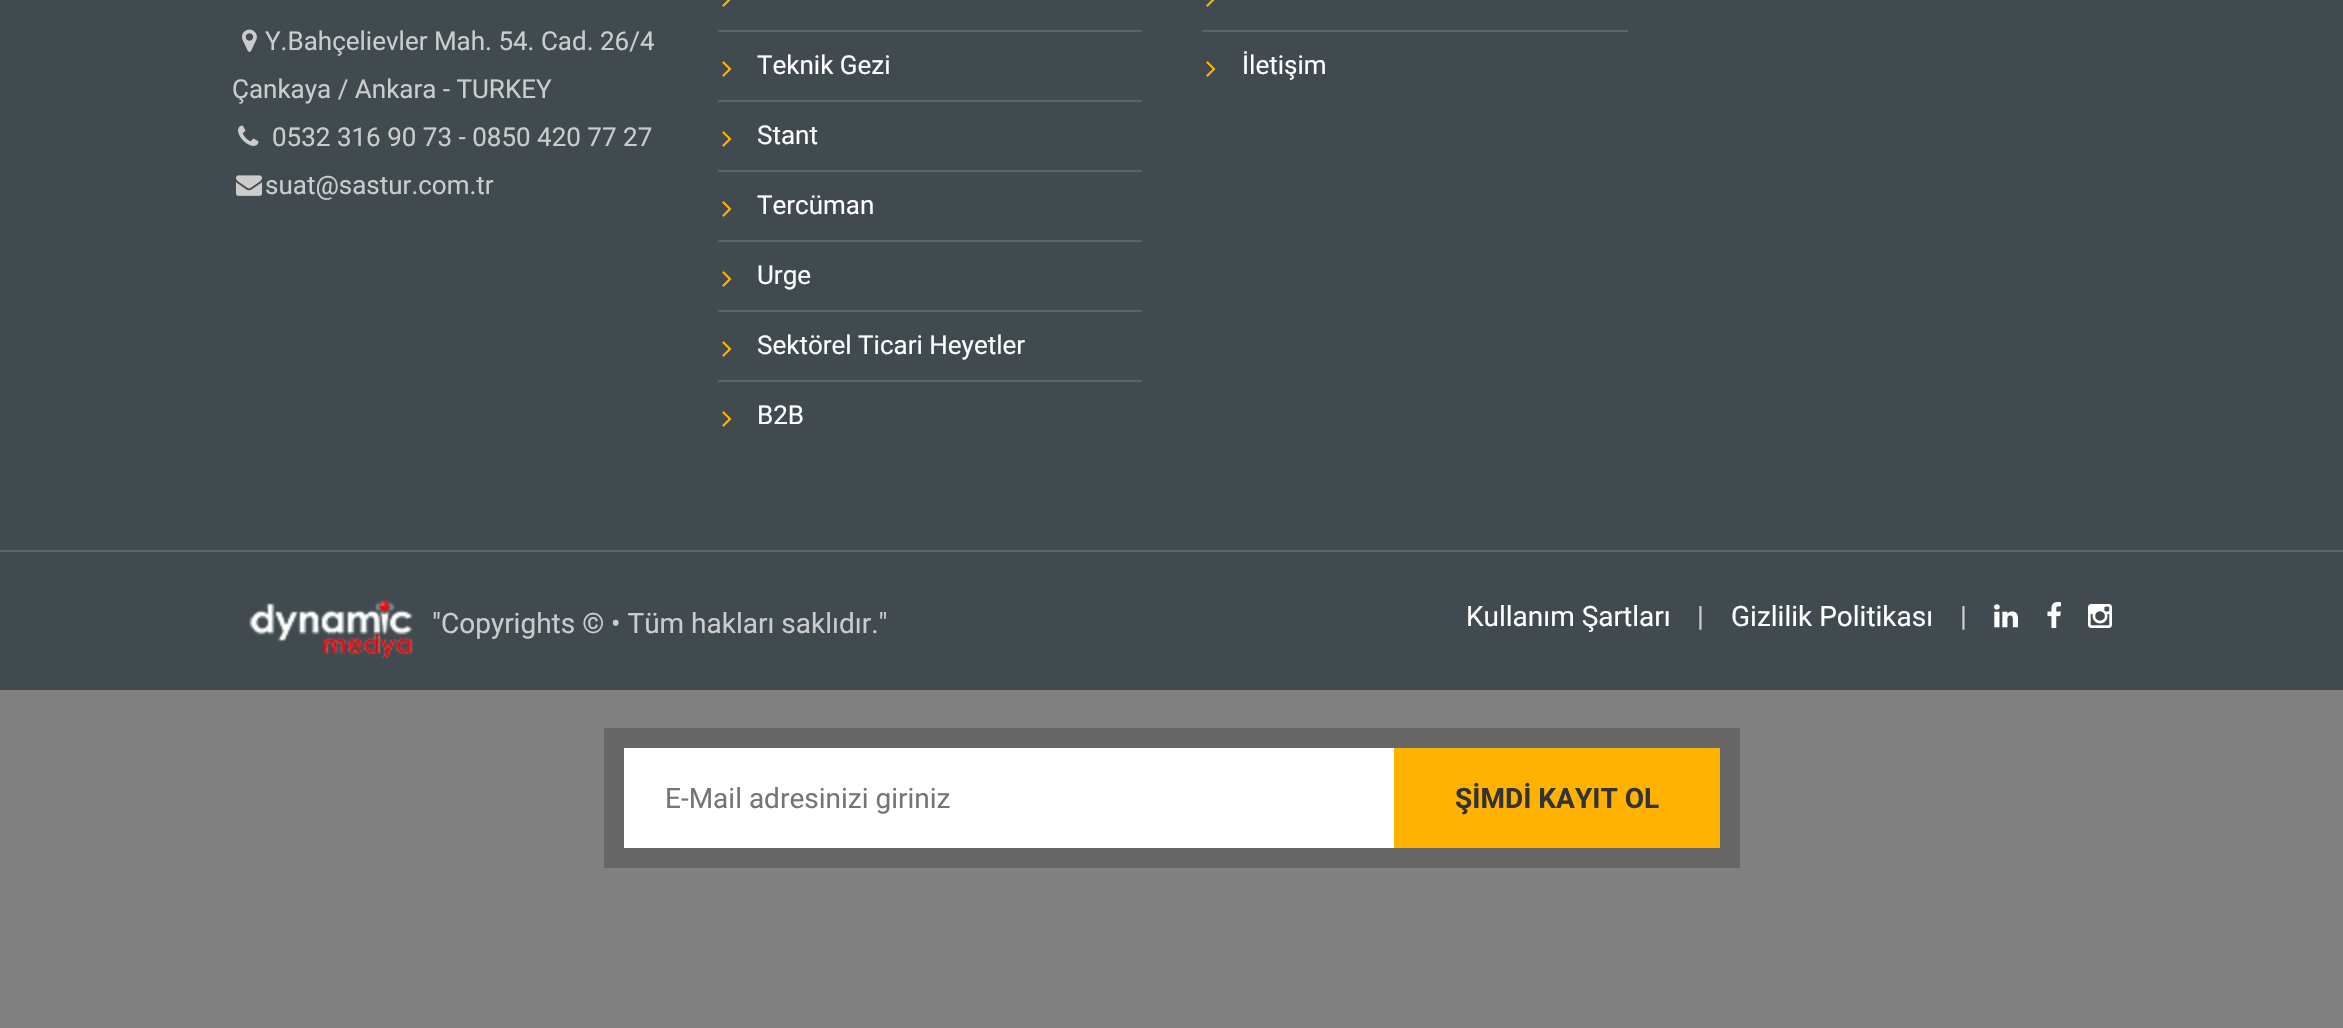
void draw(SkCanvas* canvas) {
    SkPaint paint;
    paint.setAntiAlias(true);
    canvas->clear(0xFF808080);
    paint.setColor(0xFF414B4F);
    canvas->drawRect(SkRect::MakeXYWH(0, 0, 2343, 690), paint);
    paint.setColor(0xFF5B6366);
    canvas->drawRect(SkRect::MakeXYWH(0, 550, 2343, 2), paint);
    canvas->drawImageRect(SkImages::DeferredFromEncodedData(SkData::MakeFromFileName("img1.png")), SkRect::MakeXYWH(242, 29, 15, 23), SkSamplingOptions());
    SkFont font1(fontMgr->matchFamilyStyle("Roboto", SkFontStyle::Normal()), 26);
    font1.setSubpixel(true);
    paint.setColor(0xFFCCCCCC);
    canvas->drawString("Y.Bahçelievler Mah. 54. Cad. 26/4", 265, 50, font1, paint);
    canvas->drawString("Çankaya / Ankara - TURKEY", 232, 98, font1, paint);
    canvas->drawImageRect(SkImages::DeferredFromEncodedData(SkData::MakeFromFileName("img2.png")), SkRect::MakeXYWH(238, 125, 21, 21), SkSamplingOptions());
    canvas->drawString("0532 316 90 73 - 0850 420 77 27", 272, 146, font1, paint);
    canvas->drawImageRect(SkImages::DeferredFromEncodedData(SkData::MakeFromFileName("img3.png")), SkRect::MakeXYWH(236, 175, 26, 21), SkSamplingOptions());
    canvas->drawString("suat@sastur.com.tr", 265, 194, font1, paint);
    paint.setColor(0xFF5B6366);
    canvas->drawRect(SkRect::MakeXYWH(718, 30, 424, 2), paint);
    canvas->drawImageRect(SkImages::DeferredFromEncodedData(SkData::MakeFromFileName("img4.png")), SkRect::MakeXYWH(722, 0, 9, 7), SkSamplingOptions());
    canvas->drawRect(SkRect::MakeXYWH(718, 100, 424, 2), paint);
    canvas->drawImageRect(SkImages::DeferredFromEncodedData(SkData::MakeFromFileName("img5.png")), SkRect::MakeXYWH(722, 61, 10, 16), SkSamplingOptions());
    paint.setColor(0xFFFFFFFF);
    canvas->drawString("Teknik Gezi", 757, 74, font1, paint);
    paint.setColor(0xFF5B6366);
    canvas->drawRect(SkRect::MakeXYWH(718, 170, 424, 2), paint);
    canvas->drawImageRect(SkImages::DeferredFromEncodedData(SkData::MakeFromFileName("img5.png")), SkRect::MakeXYWH(722, 131, 10, 16), SkSamplingOptions());
    paint.setColor(0xFFFFFFFF);
    canvas->drawString("Stant", 757, 144, font1, paint);
    paint.setColor(0xFF5B6366);
    canvas->drawRect(SkRect::MakeXYWH(718, 240, 424, 2), paint);
    canvas->drawImageRect(SkImages::DeferredFromEncodedData(SkData::MakeFromFileName("img5.png")), SkRect::MakeXYWH(722, 201, 10, 16), SkSamplingOptions());
    paint.setColor(0xFFFFFFFF);
    canvas->drawString("Tercüman", 757, 214, font1, paint);
    paint.setColor(0xFF5B6366);
    canvas->drawRect(SkRect::MakeXYWH(718, 310, 424, 2), paint);
    canvas->drawImageRect(SkImages::DeferredFromEncodedData(SkData::MakeFromFileName("img5.png")), SkRect::MakeXYWH(722, 271, 10, 16), SkSamplingOptions());
    paint.setColor(0xFFFFFFFF);
    canvas->drawString("Urge", 757, 284, font1, paint);
    paint.setColor(0xFF5B6366);
    canvas->drawRect(SkRect::MakeXYWH(718, 380, 424, 2), paint);
    canvas->drawImageRect(SkImages::DeferredFromEncodedData(SkData::MakeFromFileName("img5.png")), SkRect::MakeXYWH(722, 341, 10, 16), SkSamplingOptions());
    paint.setColor(0xFFFFFFFF);
    canvas->drawString("Sektörel Ticari Heyetler", 757, 354, font1, paint);
    canvas->drawImageRect(SkImages::DeferredFromEncodedData(SkData::MakeFromFileName("img5.png")), SkRect::MakeXYWH(722, 411, 10, 16), SkSamplingOptions());
    canvas->drawString("B2B", 757, 424, font1, paint);
    paint.setColor(0xFF5B6366);
    canvas->drawRect(SkRect::MakeXYWH(1202, 30, 426, 2), paint);
    canvas->drawImageRect(SkImages::DeferredFromEncodedData(SkData::MakeFromFileName("img4.png")), SkRect::MakeXYWH(1206, 0, 9, 7), SkSamplingOptions());
    canvas->drawImageRect(SkImages::DeferredFromEncodedData(SkData::MakeFromFileName("img5.png")), SkRect::MakeXYWH(1206, 61, 10, 16), SkSamplingOptions());
    paint.setColor(0xFFFFFFFF);
    canvas->drawString("İletişim", 1242, 74, font1, paint);
    canvas->drawImageRect(SkImages::DeferredFromEncodedData(SkData::MakeFromFileName("img6.png")), SkRect::MakeXYWH(249, 599, 164, 60), SkSamplingOptions());
    SkFont font2(fontMgr->matchFamilyStyle("Roboto", SkFontStyle::Normal()), 28);
    font2.setSubpixel(true);
    paint.setColor(0xFFCCCCCC);
    canvas->drawString("\"Copyrights © • Tüm hakları saklıdır.\"", 432, 633, font2, paint);
    paint.setColor(0xFFFFFFFF);
    canvas->drawString("Kullanım Şartları", 1466, 626, font2, paint);
    paint.setColor(0xFFCCCCCC);
    canvas->drawString("|", 1697, 626, font2, paint);
    paint.setColor(0xFFFFFFFF);
    canvas->drawString("Gizlilik Politikası", 1731, 626, font2, paint);
    paint.setColor(0xFFCCCCCC);
    canvas->drawString("|", 1960, 626, font2, paint);
    canvas->drawImageRect(SkImages::DeferredFromEncodedData(SkData::MakeFromFileName("img7.png")), SkRect::MakeXYWH(1994, 604, 24, 24), SkSamplingOptions());
    canvas->drawImageRect(SkImages::DeferredFromEncodedData(SkData::MakeFromFileName("img8.png")), SkRect::MakeXYWH(2047, 602, 14, 26), SkSamplingOptions());
    canvas->drawImageRect(SkImages::DeferredFromEncodedData(SkData::MakeFromFileName("img9.png")), SkRect::MakeXYWH(2088, 604, 24, 24), SkSamplingOptions());
    paint.setStyle(SkPaint::kStroke_Style);
    paint.setStrokeWidth(20);
    paint.setColor(0xFF666666);
    canvas->drawPath(SkPathBuilder().moveTo(614, 738).lineTo(1730, 738).lineTo(1730, 858).lineTo(614, 858).close().detach(), paint);
    paint.setStyle(SkPaint::kFill_Style);
    paint.setColor(0xFFFFFFFF);
    canvas->drawRect(SkRect::MakeXYWH(624, 748, 770, 100), paint);
    paint.setColor(0xFF757575);
    canvas->drawString("E-Mail adresinizi giriniz", 665, 808, font2, paint);
    paint.setColor(0xFFFFB300);
    canvas->drawRect(SkRect::MakeXYWH(1394, 748, 326, 100), paint);
    SkFont font3(fontMgr->matchFamilyStyle("Roboto", SkFontStyle::Bold()), 28);
    font3.setSubpixel(true);
    paint.setColor(0xFF333333);
    canvas->drawString("ŞİMDİ KAYIT OL", 1455, 808, font3, paint);
}
